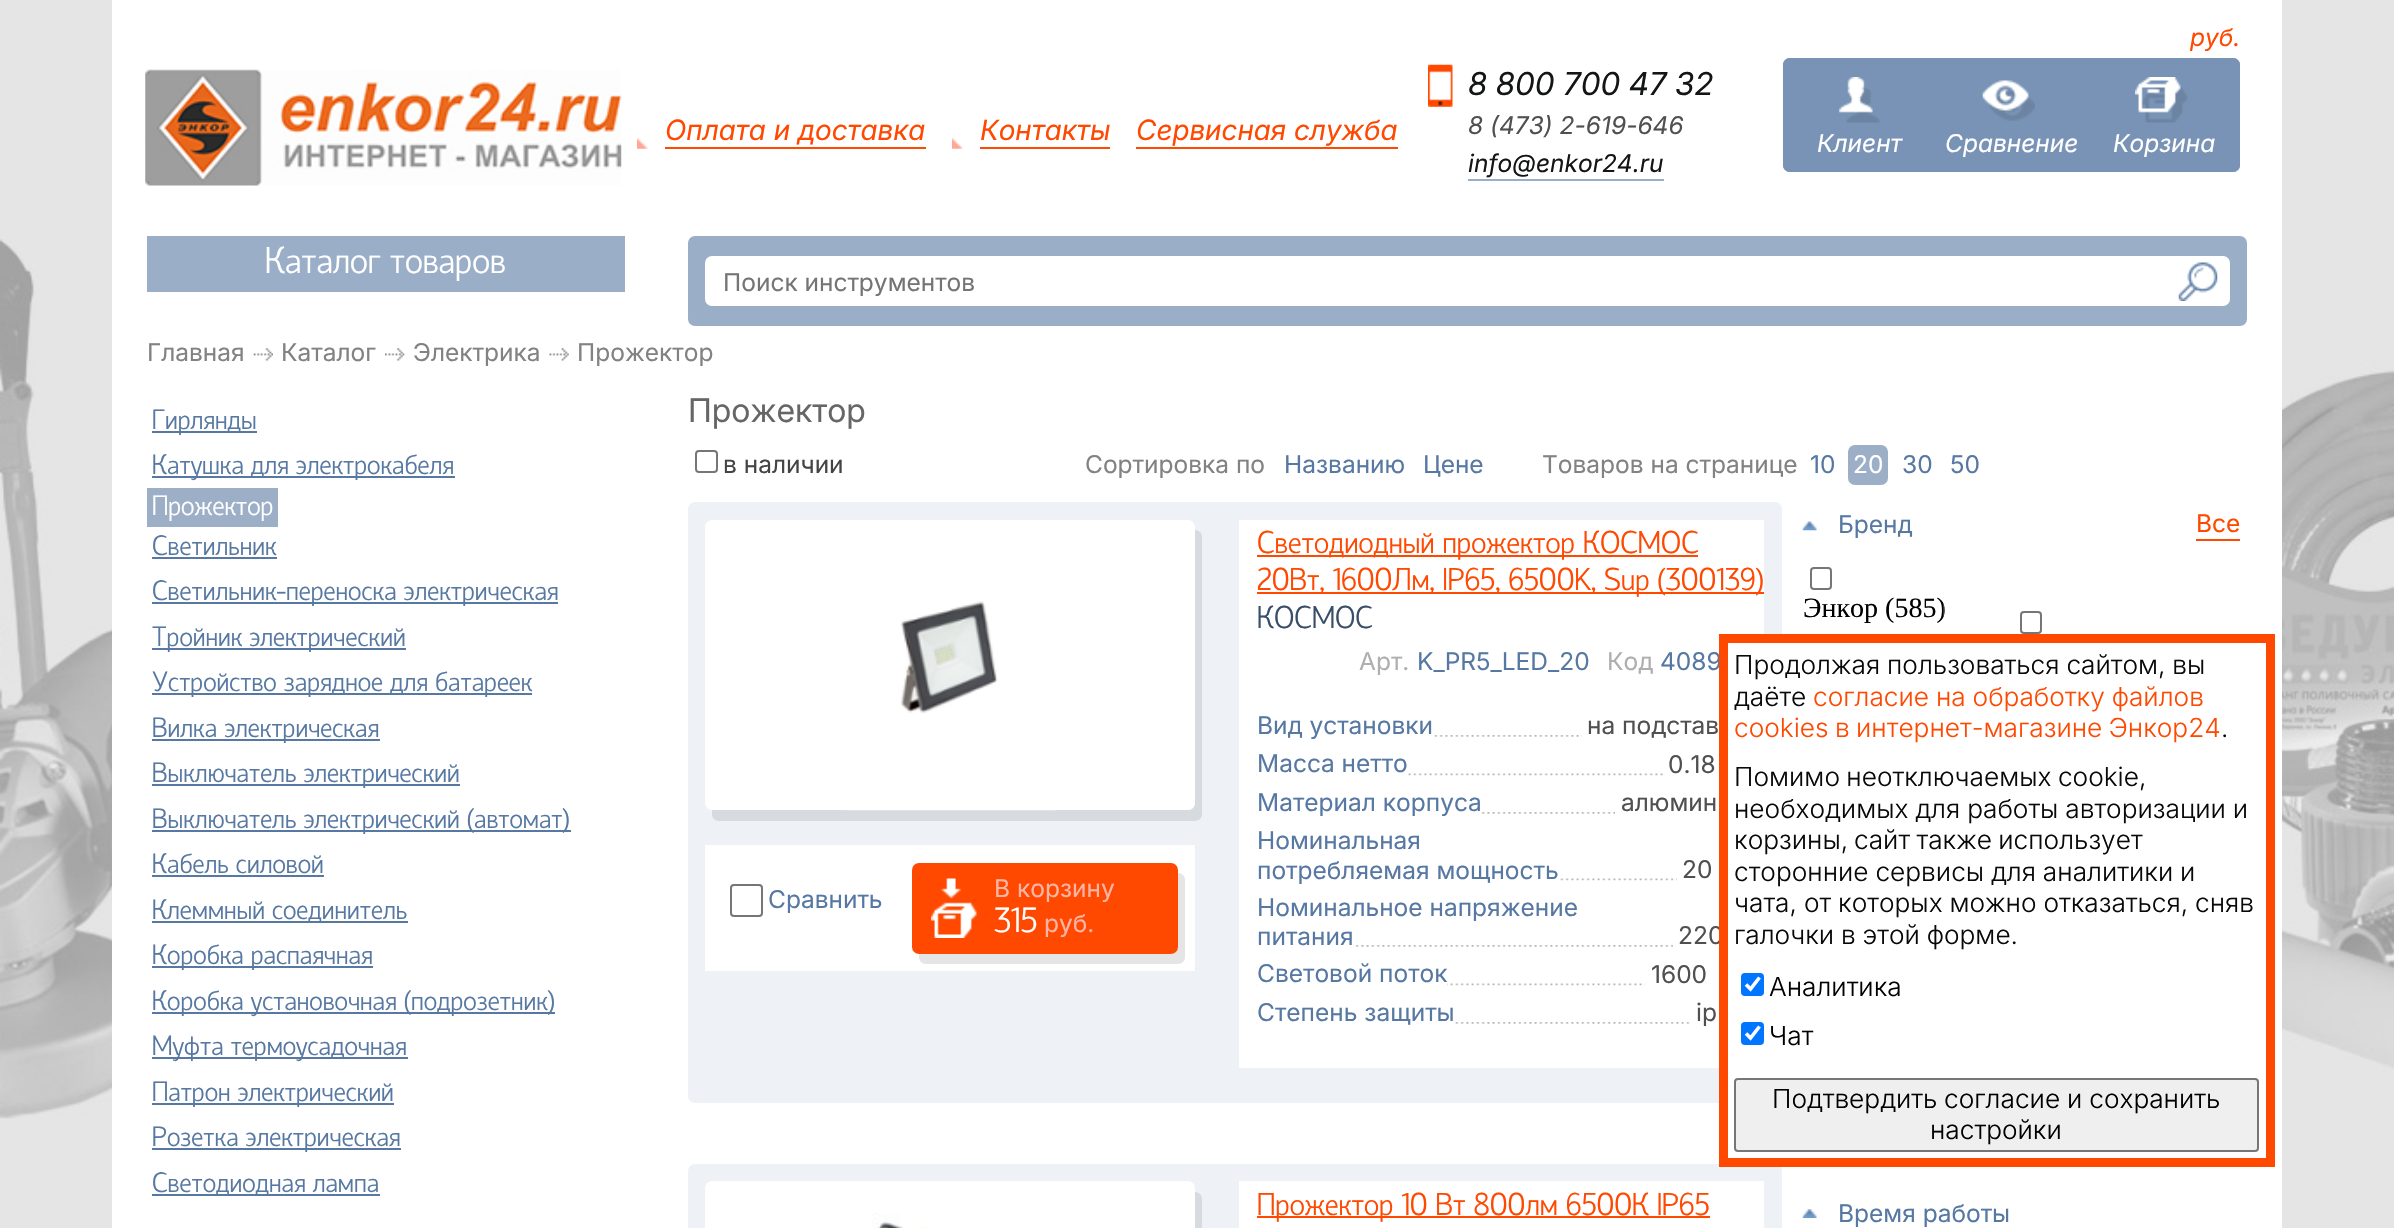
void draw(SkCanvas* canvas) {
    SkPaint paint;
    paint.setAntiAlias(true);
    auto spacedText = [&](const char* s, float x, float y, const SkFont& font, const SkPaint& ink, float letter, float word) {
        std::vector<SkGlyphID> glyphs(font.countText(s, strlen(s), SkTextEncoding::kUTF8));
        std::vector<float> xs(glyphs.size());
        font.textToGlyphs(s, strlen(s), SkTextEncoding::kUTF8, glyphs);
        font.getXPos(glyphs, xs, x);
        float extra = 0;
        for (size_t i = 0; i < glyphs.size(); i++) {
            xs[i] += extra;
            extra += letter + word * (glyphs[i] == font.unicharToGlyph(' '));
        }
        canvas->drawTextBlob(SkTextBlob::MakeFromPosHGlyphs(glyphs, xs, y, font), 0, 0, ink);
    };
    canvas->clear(0xFFE5E5E5);
    canvas->drawImageRect(SkImages::DeferredFromEncodedData(SkData::MakeFromFileName("img1.png")), SkRect::MakeXYWH(0, 239, 2394, 880), SkSamplingOptions());
    paint.setColor(0xFFFFFFFF);
    canvas->drawRect(SkRect::MakeXYWH(112, 0, 2170, 1228), paint);
    canvas->drawImageRect(SkImages::DeferredFromEncodedData(SkData::MakeFromFileName("img2.png")), SkRect::MakeXYWH(145, 69, 477, 117), SkSamplingOptions());
    canvas->drawImageRect(SkImages::DeferredFromEncodedData(SkData::MakeFromFileName("img3.png")), SkRect::MakeXYWH(637, 138, 11, 11), SkSamplingOptions());
    paint.setColor(0xFFFF4800);
    canvas->drawRect(SkRect::MakeXYWH(665, 147, 261, 2), paint);
    SkFont font1(fontMgr->matchFamilyStyle("Inter", SkFontStyle::Italic()), 28);
    font1.setSubpixel(true);
    canvas->drawString("Оплата и доставка", 665, 140, font1, paint);
    canvas->drawRect(SkRect::MakeXYWH(980, 147, 130, 2), paint);
    canvas->drawString("Контакты", 980, 140, font1, paint);
    canvas->drawImageRect(SkImages::DeferredFromEncodedData(SkData::MakeFromFileName("img3.png")), SkRect::MakeXYWH(952, 138, 11, 11), SkSamplingOptions());
    canvas->drawRect(SkRect::MakeXYWH(1136, 147, 262, 2), paint);
    canvas->drawString("Сервисная служба", 1136, 140, font1, paint);
    canvas->drawImageRect(SkImages::DeferredFromEncodedData(SkData::MakeFromFileName("img4.png")), SkRect::MakeXYWH(1428, 64, 25, 43), SkSamplingOptions());
    SkFont font2(fontMgr->matchFamilyStyle("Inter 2", SkFontStyle::Italic()), 31.5f);
    font2.setSubpixel(true);
    paint.setColor(0xFF141515);
    canvas->drawString("8 800 700 47 32", 1468, 95, font2, paint);
    SkFont font3(fontMgr->matchFamilyStyle("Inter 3", SkFontStyle::Italic()), 24.5f);
    font3.setSubpixel(true);
    paint.setColor(0xFF505050);
    canvas->drawString("8 (473) 2-619-646", 1468, 134, font3, paint);
    paint.setColor(0xFF9AAEC7);
    canvas->drawRect(SkRect::MakeXYWH(1468, 179, 196, 2), paint);
    paint.setColor(0xFF141515);
    canvas->drawString("info@enkor24.ru", 1468, 172, font3, paint);
    paint.setColor(0xFF7893B5);
    canvas->drawRoundRect(SkRect::MakeXYWH(1783, 58, 457, 114), 7, 7, paint);
    canvas->drawPath(SkPathBuilder().moveTo(1790, 58).lineTo(1936, 58).lineTo(1936, 172).lineTo(1790, 172).cubicTo(1786, 172, 1783, 169, 1783, 165).lineTo(1783, 65).cubicTo(1783, 61, 1786, 58, 1790, 58).close().detach(), paint);
    canvas->drawImageRect(SkImages::DeferredFromEncodedData(SkData::MakeFromFileName("img5.png")), SkRect::MakeXYWH(1839, 77, 41, 46), SkSamplingOptions());
    paint.setColor(0xFFFFFFFF);
    canvas->drawString("Клиент", 1817, 152, font3, paint);
    canvas->drawImageRect(SkImages::DeferredFromEncodedData(SkData::MakeFromFileName("img6.png")), SkRect::MakeXYWH(1982, 80, 53, 41), SkSamplingOptions());
    canvas->drawString("Сравнение", 1945, 152, font3, paint);
    paint.setColor(0xFF7893B5);
    canvas->drawPath(SkPathBuilder().moveTo(2088, 58).lineTo(2233, 58).cubicTo(2237, 58, 2240, 61, 2240, 65).lineTo(2240, 165).cubicTo(2240, 169, 2237, 172, 2233, 172).lineTo(2088, 172).close().detach(), paint);
    paint.setColor(0xFFFF4800);
    canvas->drawString("руб.", 2190, 46, font3, paint);
    canvas->drawImageRect(SkImages::DeferredFromEncodedData(SkData::MakeFromFileName("img7.png")), SkRect::MakeXYWH(2135, 77, 53, 46), SkSamplingOptions());
    paint.setColor(0xFFFFFFFF);
    canvas->drawString("Корзина", 2113, 152, font3, paint);
    paint.setColor(0xFF9AAEC7);
    canvas->drawRect(SkRect::MakeXYWH(147, 236, 478, 56), paint);
    SkFont font4(fontMgr->matchFamilyStyle("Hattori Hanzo", SkFontStyle(300, SkFontStyle::kNormal_Width, SkFontStyle::kUpright_Slant)), 37.25f);
    font4.setSubpixel(true);
    paint.setColor(0xFFFFFFFF);
    canvas->drawString("Каталог товаров", 265, 273, font4, paint);
    paint.setColor(0xFF9AAEC7);
    canvas->drawRoundRect(SkRect::MakeXYWH(688, 236, 1559, 90), 7, 7, paint);
    paint.setColor(0xFFFFFFFF);
    canvas->drawRoundRect(SkRect::MakeXYWH(705, 256, 1525, 50), 7, 7, paint);
    SkFont font5(fontMgr->matchFamilyStyle("Inter", SkFontStyle::Normal()), 24.5f);
    font5.setSubpixel(true);
    paint.setColor(0xFF757575);
    canvas->drawString("Поиск инструментов", 723, 291, font5, paint);
    canvas->drawImageRect(SkImages::DeferredFromEncodedData(SkData::MakeFromFileName("img8.png")), SkRect::MakeXYWH(2178, 262, 40, 39), SkSamplingOptions());
    paint.setColor(0xFF828282);
    canvas->drawString("Главная", 147, 361, font5, paint);
    canvas->drawImageRect(SkImages::DeferredFromEncodedData(SkData::MakeFromFileName("img9.png")), SkRect::MakeXYWH(253, 348, 20, 13), SkSamplingOptions());
    canvas->drawString("Каталог", 281, 361, font5, paint);
    canvas->drawImageRect(SkImages::DeferredFromEncodedData(SkData::MakeFromFileName("img10.png")), SkRect::MakeXYWH(385, 348, 20, 13), SkSamplingOptions());
    canvas->drawString("Электрика", 413, 361, font5, paint);
    canvas->drawImageRect(SkImages::DeferredFromEncodedData(SkData::MakeFromFileName("img11.png")), SkRect::MakeXYWH(549, 348, 20, 13), SkSamplingOptions());
    canvas->drawString("Прожектор", 577, 361, font5, paint);
    paint.setColor(0xFF5678A2);
    canvas->drawRect(SkRect::MakeXYWH(152, 431, 105, 2), paint);
    SkFont font6(fontMgr->matchFamilyStyle("Hattori Hanzo", SkFontStyle(300, SkFontStyle::kNormal_Width, SkFontStyle::kUpright_Slant)), 28);
    font6.setSubpixel(true);
    canvas->drawString("Гирлянды", 152, 429, font6, paint);
    canvas->drawRect(SkRect::MakeXYWH(152, 476, 303, 2), paint);
    canvas->drawString("Катушка для электрокабеля", 152, 474, font6, paint);
    paint.setColor(0xFF9CAFC6);
    canvas->drawRect(SkRect::MakeXYWH(147, 488, 131, 39), paint);
    paint.setColor(0xFFFFFFFF);
    canvas->drawString("Прожектор", 152, 515, font6, paint);
    paint.setColor(0xFF5678A2);
    canvas->drawString("Светильник", 152, 555, font6, paint);
    canvas->drawRect(SkRect::MakeXYWH(152, 557, 125, 2), paint);
    canvas->drawRect(SkRect::MakeXYWH(152, 602, 406, 2), paint);
    canvas->drawString("Светильник-переноска электрическая", 152, 600, font6, paint);
    canvas->drawRect(SkRect::MakeXYWH(152, 648, 254, 2), paint);
    canvas->drawString("Тройник электрический", 152, 646, font6, paint);
    canvas->drawRect(SkRect::MakeXYWH(152, 693, 380, 2), paint);
    canvas->drawString("Устройство зарядное для батареек", 152, 691, font6, paint);
    canvas->drawRect(SkRect::MakeXYWH(152, 739, 228, 2), paint);
    canvas->drawString("Вилка электрическая", 152, 737, font6, paint);
    canvas->drawRect(SkRect::MakeXYWH(152, 784, 308, 2), paint);
    canvas->drawString("Выключатель электрический", 152, 782, font6, paint);
    canvas->drawRect(SkRect::MakeXYWH(152, 830, 419, 2), paint);
    canvas->drawString("Выключатель электрический (автомат)", 152, 828, font6, paint);
    canvas->drawString("Кабель силовой", 152, 873, font6, paint);
    canvas->drawRect(SkRect::MakeXYWH(152, 875, 172, 2), paint);
    canvas->drawRect(SkRect::MakeXYWH(152, 921, 256, 2), paint);
    canvas->drawString("Клеммный соединитель", 152, 919, font6, paint);
    canvas->drawRect(SkRect::MakeXYWH(152, 966, 221, 2), paint);
    canvas->drawString("Коробка распаячная", 152, 964, font6, paint);
    canvas->drawRect(SkRect::MakeXYWH(152, 1012, 403, 2), paint);
    canvas->drawString("Коробка установочная (подрозетник)", 152, 1010, font6, paint);
    canvas->drawRect(SkRect::MakeXYWH(152, 1057, 256, 2), paint);
    canvas->drawString("Муфта термоусадочная", 152, 1055, font6, paint);
    canvas->drawRect(SkRect::MakeXYWH(152, 1103, 242, 2), paint);
    canvas->drawString("Патрон электрический", 152, 1101, font6, paint);
    canvas->drawRect(SkRect::MakeXYWH(152, 1148, 249, 2), paint);
    canvas->drawString("Розетка электрическая", 152, 1146, font6, paint);
    canvas->drawRect(SkRect::MakeXYWH(152, 1194, 228, 2), paint);
    canvas->drawString("Светодиодная лампа", 152, 1192, font6, paint);
    SkFont font7(fontMgr->matchFamilyStyle("Inter 2", SkFontStyle::Normal()), 32.5f);
    font7.setSubpixel(true);
    paint.setColor(0xFF666666);
    canvas->drawString("Прожектор", 688, 422, font7, paint);
    paint.setStyle(SkPaint::kStroke_Style);
    paint.setStrokeWidth(2);
    paint.setColor(0xFF767676);
    canvas->drawRoundRect(SkRect::MakeXYWH(696, 451, 21, 21), 3, 3, paint);
    paint.setStyle(SkPaint::kFill_Style);
    paint.setColor(0xFF444444);
    canvas->drawString("в наличии", 723, 473, font5, paint);
    paint.setColor(0xFF828282);
    canvas->drawString("Сортировка по", 1085, 473, font5, paint);
    paint.setColor(0xFF5678A2);
    canvas->drawString("Названию", 1284, 473, font5, paint);
    canvas->drawString("Цене", 1423, 473, font5, paint);
    paint.setColor(0xFF828282);
    canvas->drawString("Товаров на странице", 1542, 473, font5, paint);
    paint.setColor(0xFF5678A2);
    canvas->drawString("10", 1810, 473, font5, paint);
    paint.setColor(0xFF9CAFC6);
    canvas->drawRoundRect(SkRect::MakeXYWH(1848, 445, 40, 40), 7, 7, paint);
    paint.setColor(0xFFFFFFFF);
    canvas->drawString("20", 1853, 473, font5, paint);
    paint.setColor(0xFF5678A2);
    canvas->drawString("30", 1902, 473, font5, paint);
    canvas->drawString("50", 1950, 473, font5, paint);
    paint.setColor(0xFFEEF1F6);
    canvas->drawRoundRect(SkRect::MakeXYWH(688, 502, 1094, 601), 7, 7, paint);
    paint.setColor(0xFFD7DADE);
    canvas->drawPath(SkPathBuilder().moveTo(712, 810).lineTo(712, 814).cubicTo(712, 818, 715, 821, 719, 821).lineTo(1195, 821).cubicTo(1199, 821, 1202, 818, 1202, 814).lineTo(1202, 537).cubicTo(1202, 533, 1199, 530, 1195, 530).lineTo(1195, 803).cubicTo(1195, 807, 1192, 810, 1188, 810).close().detach(), paint);
    paint.setColor(0xFFFFFFFF);
    canvas->drawRoundRect(SkRect::MakeXYWH(705, 520, 490, 290), 7, 7, paint);
    canvas->drawImageRect(SkImages::DeferredFromEncodedData(SkData::MakeFromFileName("img12.png")), SkRect::MakeXYWH(847, 601, 208, 210), SkSamplingOptions());
    canvas->drawRect(SkRect::MakeXYWH(705, 845, 490, 126), paint);
    paint.setStyle(SkPaint::kStroke_Style);
    paint.setColor(0xFF767676);
    canvas->drawRoundRect(SkRect::MakeXYWH(731, 885, 31, 31), 3, 3, paint);
    paint.setStyle(SkPaint::kFill_Style);
    paint.setColor(0xFF5678A2);
    canvas->drawString("Сравнить", 768, 908, font5, paint);
    paint.setColor(0xFFE5E5E5);
    canvas->drawPath(SkPathBuilder().moveTo(919, 954).lineTo(919, 957).cubicTo(919, 961, 922, 964, 926, 964).lineTo(1178, 964).cubicTo(1182, 964, 1185, 961, 1185, 957).lineTo(1185, 880).cubicTo(1185, 876, 1182, 873, 1178, 873).lineTo(1178, 947).cubicTo(1178, 951, 1175, 954, 1171, 954).close().detach(), paint);
    paint.setColor(0xFFFF4800);
    canvas->drawRoundRect(SkRect::MakeXYWH(912, 863, 266, 91), 7, 7, paint);
    canvas->drawImageRect(SkImages::DeferredFromEncodedData(SkData::MakeFromFileName("img13.png")), SkRect::MakeXYWH(931, 878, 46, 60), SkSamplingOptions());
    paint.setColor(0xFFFEB5A6);
    canvas->drawString("В корзину", 994, 897, font5, paint);
    SkFont font8(fontMgr->matchFamilyStyle("Hattori Hanzo", SkFontStyle(300, SkFontStyle::kNormal_Width, SkFontStyle::kUpright_Slant)), 35);
    font8.setSubpixel(true);
    paint.setColor(0xFFFFFFFF);
    canvas->drawString("315", 994, 932, font8, paint);
    paint.setColor(0xFFFEB5A6);
    canvas->drawString("руб.", 1044, 932, font5, paint);
    paint.setColor(0xFFFFFFFF);
    canvas->drawRect(SkRect::MakeXYWH(1239, 520, 525, 548), paint);
    paint.setColor(0xFFFF4800);
    canvas->drawRect(SkRect::MakeXYWH(1257, 555, 441, 2), paint);
    SkFont font9(fontMgr->matchFamilyStyle("Hattori Hanzo", SkFontStyle(300, SkFontStyle::kNormal_Width, SkFontStyle::kUpright_Slant)), 31.5f);
    font9.setSubpixel(true);
    canvas->drawString("Светодиодный прожектор КОСМОС", 1257, 553, font9, paint);
    canvas->drawRect(SkRect::MakeXYWH(1257, 592, 507, 2), paint);
    canvas->drawString("20Вт, 1600Лм, IP65, 6500K, Sup (300139)", 1257, 590, font9, paint);
    paint.setColor(0xFF394E68);
    canvas->drawString("КОСМОС", 1257, 628, font9, paint);
    paint.setColor(0xFFAFAFAF);
    canvas->drawString("Арт.", 1359, 670, font5, paint);
    paint.setColor(0xFF5678A2);
    canvas->drawString("K_PR5_LED_20", 1417, 670, font5, paint);
    paint.setColor(0xFFAFAFAF);
    canvas->drawString("Код", 1607, 670, font5, paint);
    paint.setColor(0xFF5678A2);
    canvas->drawString("4089", 1660, 670, font5, paint);
    canvas->drawImageRect(SkImages::DeferredFromEncodedData(SkData::MakeFromFileName("img14.png")), SkRect::MakeXYWH(1256, 735, 326, 2), SkSamplingOptions());
    paint.setColor(0xFFFFFFFF);
    canvas->drawRect(SkRect::MakeXYWH(1257, 735, 175, 2), paint);
    paint.setColor(0xFF5678A2);
    canvas->drawString("Вид установки", 1257, 734, font5, paint);
    paint.setColor(0xFF505050);
    canvas->drawString("на подстав", 1587, 734, font5, paint);
    paint.setColor(0xFF5678A2);
    canvas->drawString("Масса нетто", 1257, 772, font5, paint);
    canvas->drawImageRect(SkImages::DeferredFromEncodedData(SkData::MakeFromFileName("img15.png")), SkRect::MakeXYWH(1256, 773, 407, 3), SkSamplingOptions());
    paint.setColor(0xFFFFFFFF);
    canvas->drawRect(SkRect::MakeXYWH(1257, 773, 149, 3), paint);
    paint.setColor(0xFF505050);
    canvas->drawString("0.18", 1668, 773, font5, paint);
    canvas->drawImageRect(SkImages::DeferredFromEncodedData(SkData::MakeFromFileName("img16.png")), SkRect::MakeXYWH(1256, 812, 359, 2), SkSamplingOptions());
    paint.setColor(0xFFFFFFFF);
    canvas->drawRect(SkRect::MakeXYWH(1257, 812, 223, 2), paint);
    paint.setColor(0xFF5678A2);
    canvas->drawString("Материал корпуса", 1257, 811, font5, paint);
    paint.setColor(0xFF505050);
    canvas->drawString("алюмин", 1621, 811, font5, paint);
    paint.setColor(0xFF5678A2);
    canvas->drawString("Номинальная", 1257, 849, font5, paint);
    canvas->drawImageRect(SkImages::DeferredFromEncodedData(SkData::MakeFromFileName("img17.png")), SkRect::MakeXYWH(1256, 878, 421, 3), SkSamplingOptions());
    paint.setColor(0xFFFFFFFF);
    canvas->drawRect(SkRect::MakeXYWH(1257, 878, 301, 3), paint);
    paint.setColor(0xFF5678A2);
    canvas->drawString("потребляемая мощность", 1257, 879, font5, paint);
    paint.setColor(0xFF505050);
    canvas->drawString("20", 1682, 878, font5, paint);
    paint.setColor(0xFF5678A2);
    canvas->drawString("Номинальное напряжение", 1257, 916, font5, paint);
    canvas->drawImageRect(SkImages::DeferredFromEncodedData(SkData::MakeFromFileName("img18.png")), SkRect::MakeXYWH(1256, 945, 417, 2), SkSamplingOptions());
    paint.setColor(0xFFFFFFFF);
    canvas->drawRect(SkRect::MakeXYWH(1257, 945, 96, 2), paint);
    paint.setColor(0xFF5678A2);
    canvas->drawString("питания", 1257, 945, font5, paint);
    paint.setColor(0xFF505050);
    canvas->drawString("220", 1678, 944, font5, paint);
    paint.setColor(0xFF5678A2);
    canvas->drawString("Световой поток", 1257, 982, font5, paint);
    canvas->drawImageRect(SkImages::DeferredFromEncodedData(SkData::MakeFromFileName("img19.png")), SkRect::MakeXYWH(1256, 983, 389, 3), SkSamplingOptions());
    paint.setColor(0xFFFFFFFF);
    canvas->drawRect(SkRect::MakeXYWH(1257, 983, 190, 3), paint);
    paint.setColor(0xFF505050);
    canvas->drawString("1600", 1651, 983, font5, paint);
    canvas->drawImageRect(SkImages::DeferredFromEncodedData(SkData::MakeFromFileName("img20.png")), SkRect::MakeXYWH(1256, 1022, 434, 2), SkSamplingOptions());
    paint.setColor(0xFFFFFFFF);
    canvas->drawRect(SkRect::MakeXYWH(1257, 1022, 196, 2), paint);
    paint.setColor(0xFF5678A2);
    canvas->drawString("Степень защиты", 1257, 1021, font5, paint);
    paint.setColor(0xFF505050);
    canvas->drawString("ip", 1696, 1021, font5, paint);
    paint.setColor(0xFFEEF1F6);
    canvas->drawRoundRect(SkRect::MakeXYWH(688, 1164, 1094, 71), 7, 7, paint);
    paint.setColor(0xFFD7DADE);
    canvas->drawPath(SkPathBuilder().moveTo(712, 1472).lineTo(712, 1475).cubicTo(712, 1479, 715, 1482, 719, 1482).lineTo(1195, 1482).cubicTo(1199, 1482, 1202, 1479, 1202, 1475).lineTo(1202, 1199).cubicTo(1202, 1195, 1199, 1192, 1195, 1192).lineTo(1195, 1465).cubicTo(1195, 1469, 1192, 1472, 1188, 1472).close().detach(), paint);
    paint.setColor(0xFFFFFFFF);
    canvas->drawRoundRect(SkRect::MakeXYWH(705, 1181, 490, 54), 7, 7, paint);
    canvas->drawImageRect(SkImages::DeferredFromEncodedData(SkData::MakeFromFileName("img21.png")), SkRect::MakeXYWH(872, 1213, 57, 15), SkSamplingOptions());
    canvas->drawRect(SkRect::MakeXYWH(1239, 1181, 525, 47), paint);
    paint.setColor(0xFFFF4800);
    canvas->drawRect(SkRect::MakeXYWH(1257, 1216, 453, 2), paint);
    canvas->drawString("Прожектор 10 Вт 800лм 6500К IP65", 1257, 1215, font9, paint);
    canvas->drawImageRect(SkImages::DeferredFromEncodedData(SkData::MakeFromFileName("img22.png")), SkRect::MakeXYWH(1802, 521, 15, 10), SkSamplingOptions());
    paint.setColor(0xFF5678A2);
    canvas->drawString("Бренд", 1838, 533, font5, paint);
    paint.setColor(0xFFFF4800);
    canvas->drawRect(SkRect::MakeXYWH(2196, 539, 44, 2), paint);
    canvas->drawString("Все", 2196, 532, font5, paint);
    paint.setStyle(SkPaint::kStroke_Style);
    paint.setColor(0xFF767676);
    canvas->drawRoundRect(SkRect::MakeXYWH(1811, 568, 20, 21), 3, 3, paint);
    SkFont font10(fontMgr->matchFamilyStyle("Liberation Serif", SkFontStyle::Normal()), 28);
    font10.setSubpixel(true);
    paint.setStyle(SkPaint::kFill_Style);
    paint.setColor(0xFF000000);
    canvas->drawString("Энкор (585)", 1803, 617, font10, paint);
    {
        const SkColor colors[] = {0x33FFFFFF, 0xFFFFFFFF};
        const float stops[] = {0, 1};
        const SkPoint ends[] = {{1943, 609}, {1995, 609}};
        paint.setShader(SkGradientShader::MakeLinear(ends, colors, stops, 2, SkTileMode::kClamp));
        paint.setAlpha(255);
    }
    canvas->drawRect(SkRect::MakeXYWH(1943, 604, 1, 12), paint);
    paint.setStyle(SkPaint::kStroke_Style);
    paint.setShader(nullptr);
    paint.setColor(0xFF767676);
    canvas->drawRoundRect(SkRect::MakeXYWH(2021, 612, 20, 21), 3, 3, paint);
    canvas->drawImageRect(SkImages::DeferredFromEncodedData(SkData::MakeFromFileName("img23.png")), SkRect::MakeXYWH(1802, 1209, 15, 9), SkSamplingOptions());
    paint.setStyle(SkPaint::kFill_Style);
    paint.setColor(0xFF5678A2);
    canvas->drawString("Время работы", 1838, 1222, font5, paint);
    paint.setColor(0xFFFFFFFF);
    canvas->drawRect(SkRect::MakeXYWH(1728, 643, 54, 460), paint);
    paint.setStyle(SkPaint::kStroke_Style);
    paint.setStrokeWidth(9);
    paint.setColor(0xFFFF4800);
    canvas->drawRect(SkRect::MakeXYWH(1723.5f, 638.5f, 547, 524), paint);
    SkFont font11(fontMgr->matchFamilyStyle("Inter", SkFontStyle(300, SkFontStyle::kNormal_Width, SkFontStyle::kUpright_Slant)), 26.25f);
    font11.setSubpixel(true);
    paint.setStyle(SkPaint::kFill_Style);
    paint.setColor(0xFF090909);
    spacedText("Продолжая пользоваться сайтом, вы", 1734, 674, font11, paint, 0, -0.5f);
    canvas->drawString("даёте", 1734, 706, font11, paint);
    paint.setColor(0xFFFF4800);
    spacedText("согласие на обработку файлов", 1813, 706, font11, paint, 0, -0.5f);
    spacedText("cookies в интернет-магазине Энкор24", 1734, 737, font11, paint, 0, -1);
    paint.setColor(0xFF090909);
    canvas->drawString(".", 2221, 737, font11, paint);
    spacedText("Помимо неотключаемых cookie,", 1734, 786, font11, paint, 0, -1);
    spacedText("необходимых для работы авторизации и", 1734, 818, font11, paint, 0, -0.5f);
    canvas->drawString("корзины,", 1734, 849, font11, paint);
    spacedText("сайт также использует", 1854, 849, font11, paint, 0, -1);
    spacedText("сторонние сервисы для аналитики и", 1734, 881, font11, paint, 0, -0.5f);
    canvas->drawString("чата,", 1734, 912, font11, paint);
    spacedText("от которых можно отказаться, сняв", 1804, 912, font11, paint, 0, -0.5f);
    spacedText("галочки в этой форме.", 1734, 944, font11, paint, 0, -0.5f);
    paint.setColor(0xFF0075FF);
    canvas->drawRoundRect(SkRect::MakeXYWH(1741, 973, 23, 23), 4, 4, paint);
    paint.setStyle(SkPaint::kStroke_Style);
    paint.setStrokeWidth(3.6f);
    paint.setColor(0xFFFFFFFF);
    canvas->drawPath(SkPathBuilder().moveTo(1746, 984.5f).lineTo(1750.5f, 989).lineTo(1759.5f, 977.5f).detach(), paint);
    paint.setStyle(SkPaint::kFill_Style);
    paint.setColor(0xFF000000);
    canvas->drawString("Аналитика", 1769, 996, font11, paint);
    paint.setColor(0xFF0075FF);
    canvas->drawRoundRect(SkRect::MakeXYWH(1741, 1022, 23, 23), 4, 4, paint);
    paint.setStyle(SkPaint::kStroke_Style);
    paint.setColor(0xFFFFFFFF);
    canvas->drawPath(SkPathBuilder().moveTo(1746, 1033.5f).lineTo(1750.5f, 1038).lineTo(1759.5f, 1026.5f).detach(), paint);
    paint.setStyle(SkPaint::kFill_Style);
    paint.setColor(0xFF000000);
    canvas->drawString("Чат", 1769, 1045, font11, paint);
    paint.setColor(0xFFEFEFEF);
    canvas->drawRoundRect(SkRect::MakeXYWH(1735, 1079, 523, 72), 3, 3, paint);
    paint.setStyle(SkPaint::kStroke_Style);
    paint.setStrokeWidth(2);
    paint.setColor(0xFF767676);
    canvas->drawRoundRect(SkRect::MakeXYWH(1735, 1079, 523, 72), 3, 3, paint);
    paint.setStyle(SkPaint::kFill_Style);
    paint.setColor(0xFF000000);
    spacedText("Подтвердить согласие и сохранить", 1772, 1108, font11, paint, 0, -0.5f);
    canvas->drawString("настройки", 1930, 1139, font11, paint);
}
